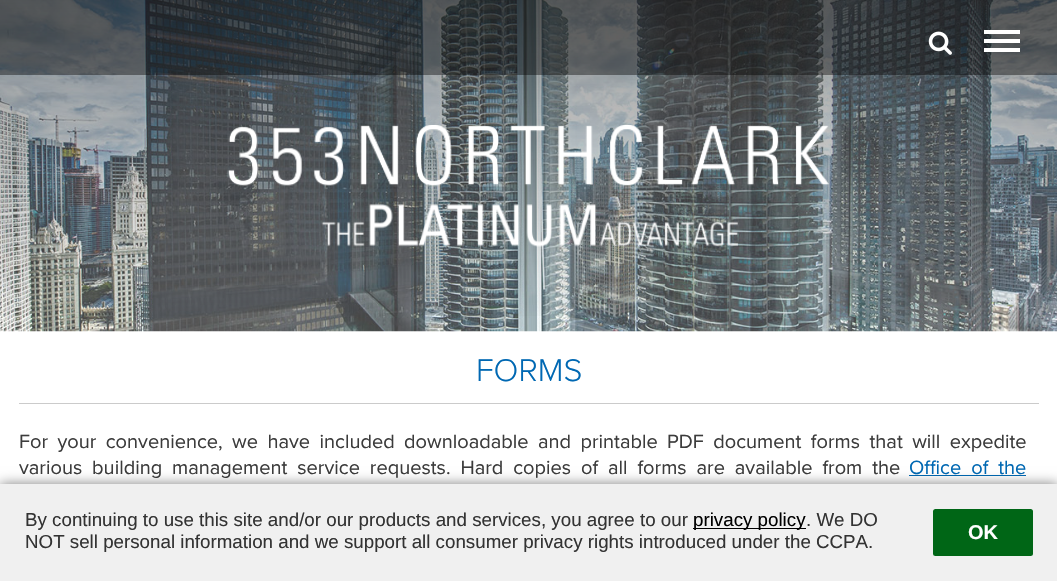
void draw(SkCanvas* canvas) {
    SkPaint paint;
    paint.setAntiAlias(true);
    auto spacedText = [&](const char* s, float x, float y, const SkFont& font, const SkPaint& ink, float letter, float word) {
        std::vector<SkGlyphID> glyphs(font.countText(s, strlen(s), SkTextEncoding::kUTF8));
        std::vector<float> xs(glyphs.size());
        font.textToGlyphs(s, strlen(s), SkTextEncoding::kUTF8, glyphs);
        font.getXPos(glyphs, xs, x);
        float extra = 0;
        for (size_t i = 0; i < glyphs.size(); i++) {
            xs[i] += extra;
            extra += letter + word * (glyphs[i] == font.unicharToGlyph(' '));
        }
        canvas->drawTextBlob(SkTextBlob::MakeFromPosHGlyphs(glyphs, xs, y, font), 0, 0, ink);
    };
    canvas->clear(0xFFFFFFFF);
    canvas->drawImageRect(SkImages::DeferredFromEncodedData(SkData::MakeFromFileName("img1.png")), SkRect::MakeXYWH(0, 0, 1057, 332), SkSamplingOptions());
    {
        const SkColor colors[] = {0x7A222222, 0x00222222};
        const float stops[] = {0, 1};
        const SkPoint ends[] = {{529, 0}, {529, 331}};
        paint.setShader(SkGradientShader::MakeLinear(ends, colors, stops, 2, SkTileMode::kClamp));
        paint.setAlpha(255);
    }
    canvas->drawRect(SkRect::MakeXYWH(0, 0, 1057, 316), paint);
    paint.setShader(nullptr);
    paint.setColor(0x66000000);
    canvas->drawRect(SkRect::MakeXYWH(0, 0, 1057, 75), paint);
    canvas->drawImageRect(SkImages::DeferredFromEncodedData(SkData::MakeFromFileName("img2.png")), SkRect::MakeXYWH(928, 31, 24, 24), SkSamplingOptions());
    paint.setColor(0xFFFFFFFF);
    canvas->drawRect(SkRect::MakeXYWH(984, 30, 36, 4), paint);
    canvas->drawRect(SkRect::MakeXYWH(984, 39, 36, 4), paint);
    canvas->drawRect(SkRect::MakeXYWH(984, 48, 36, 4), paint);
    canvas->drawImageRect(SkImages::DeferredFromEncodedData(SkData::MakeFromFileName("img3.png")), SkRect::MakeXYWH(228, 125, 601, 122), SkSamplingOptions());
    paint.setColor(0xFFCBCBCB);
    canvas->drawRect(SkRect::MakeXYWH(19, 403, 1020, 1), paint);
    SkFont font1(fontMgr->matchFamilyStyle("Proxima Nova", SkFontStyle(300, SkFontStyle::kNormal_Width, SkFontStyle::kUpright_Slant)), 32.5f);
    font1.setSubpixel(true);
    paint.setColor(0xFF0068B3);
    canvas->drawString("FORMS", 476, 381, font1, paint);
    SkFont font2(fontMgr->matchFamilyStyle("Proxima Nova", SkFontStyle::Normal()), 20);
    font2.setSubpixel(true);
    paint.setColor(0xFF3C3C3C);
    spacedText("For your convenience, we have included downloadable and printable PDF document forms that will expedite", 19, 448, font2, paint, 0, 4.25f);
    spacedText("various building management service requests. Hard copies of all forms are available from the", 19, 474, font2, paint, 0, 4.75f);
    paint.setColor(0xFF0068B3);
    spacedText("Office of the", 909, 474, font2, paint, 0, 4.75f);
    canvas->drawRect(SkRect::MakeXYWH(909, 475, 117, 1), paint);
    paint.setColor(0x80000000);
    paint.setMaskFilter(SkMaskFilter::MakeBlur(kNormal_SkBlurStyle, 6));
    canvas->drawRect(SkRect::MakeXYWH(0, 484, 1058, 97), paint);
    paint.setMaskFilter(nullptr);
    paint.setColor(0xFFF0F0F0);
    canvas->drawRect(SkRect::MakeXYWH(0, 484, 1057, 97), paint);
    SkFont font3(fontMgr->matchFamilyStyle("Liberation Sans", SkFontStyle::Normal()), 18.75f);
    font3.setSubpixel(true);
    paint.setColor(0xFF333333);
    canvas->drawString("By continuing to use this site and/or our products and services, you agree to our", 25, 526, font3, paint);
    paint.setColor(0xFF000000);
    canvas->drawRect(SkRect::MakeXYWH(693, 528, 113, 1), paint);
    canvas->drawString("privacy policy", 693, 526, font3, paint);
    paint.setColor(0xFF333333);
    canvas->drawString(". We DO", 806, 526, font3, paint);
    canvas->drawString("NOT sell personal information and we support all consumer privacy rights introduced under the CCPA.", 25, 548, font3, paint);
    paint.setColor(0xFF006616);
    canvas->drawRoundRect(SkRect::MakeXYWH(933, 509, 100, 47), 2.5f, 2.5f, paint);
    SkFont font4(fontMgr->matchFamilyStyle("Liberation Sans", SkFontStyle::Bold()), 20);
    font4.setSubpixel(true);
    paint.setColor(0xFFFFFFFF);
    canvas->drawString("OK", 968, 539, font4, paint);
}
